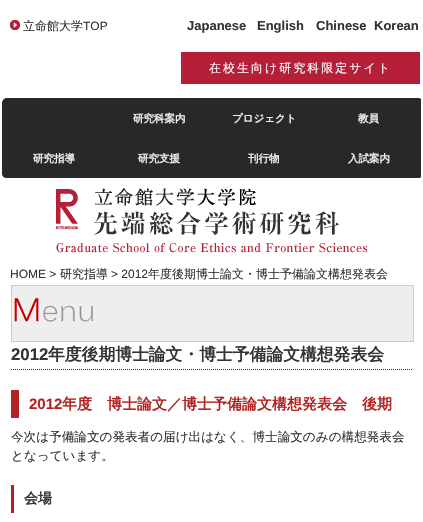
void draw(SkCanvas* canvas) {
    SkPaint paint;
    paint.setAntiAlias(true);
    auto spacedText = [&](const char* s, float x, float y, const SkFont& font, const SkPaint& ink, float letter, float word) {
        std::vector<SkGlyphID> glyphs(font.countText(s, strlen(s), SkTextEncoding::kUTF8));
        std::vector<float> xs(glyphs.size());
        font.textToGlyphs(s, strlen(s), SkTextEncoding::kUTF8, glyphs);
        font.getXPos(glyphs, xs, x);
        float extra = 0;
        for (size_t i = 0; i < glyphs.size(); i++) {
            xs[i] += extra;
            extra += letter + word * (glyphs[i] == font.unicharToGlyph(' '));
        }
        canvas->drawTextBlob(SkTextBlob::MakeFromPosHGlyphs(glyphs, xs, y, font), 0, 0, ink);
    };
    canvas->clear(0xFFFFFFFF);
    canvas->drawImageRect(SkImages::DeferredFromEncodedData(SkData::MakeFromFileName("img1.png")), SkRect::MakeXYWH(10, 20, 10, 10), SkSamplingOptions());
    SkFont font1(fontMgr->matchFamilyStyle("WenQuanYi Zen Hei", SkFontStyle(500, SkFontStyle::kNormal_Width, SkFontStyle::kUpright_Slant)), 12);
    font1.setSubpixel(true);
    paint.setColor(0xFF333333);
    canvas->drawString("立命館大学", 23, 30, font1, paint);
    SkFont font2(fontMgr->matchFamilyStyle("Liberation Sans", SkFontStyle::Normal()), 12);
    font2.setSubpixel(true);
    canvas->drawString("TOP", 83, 30, font2, paint);
    SkFont font3(fontMgr->matchFamilyStyle("Liberation Sans", SkFontStyle::Bold()), 13);
    font3.setSubpixel(true);
    canvas->drawString("Japanese", 187, 30, font3, paint);
    canvas->drawString("English", 257, 30, font3, paint);
    canvas->drawString("Chinese", 316, 30, font3, paint);
    canvas->drawString("Korean", 374, 30, font3, paint);
    paint.setColor(0xFFB61F38);
    canvas->drawRect(SkRect::MakeXYWH(181, 52, 239, 32), paint);
    paint.setColor(0xFFFFFFFF);
    spacedText("在校生向け研究科限定サイト", 209, 72, font1, paint, 2, 0);
    paint.setColor(0xFF282828);
    canvas->drawRoundRect(SkRect::MakeXYWH(2, 98, 419, 80), 5, 5, paint);
    SkFont font4(fontMgr->matchFamilyStyle("WenQuanYi Zen Hei", SkFontStyle::Bold()), 10.5f);
    font4.setSubpixel(true);
    paint.setColor(0xFFEEEEEE);
    canvas->drawString("研究科案内", 133, 122, font4, paint);
    canvas->drawString("プロジェクト", 232, 122, font4, paint);
    canvas->save();
    canvas->clipRect(SkRect::MakeXYWH(2, 98, 419, 80));
    paint.setColor(0xFF282828);
    canvas->drawPath(SkPathBuilder().moveTo(316, 98).lineTo(418, 98).cubicTo(421, 98, 423, 100, 423, 103).lineTo(423, 138).lineTo(316, 138).close().detach(), paint);
    canvas->restore();
    paint.setColor(0xFFEEEEEE);
    canvas->drawString("教員", 358, 122, font4, paint);
    paint.setColor(0xFF282828);
    canvas->drawPath(SkPathBuilder().moveTo(2, 138).lineTo(109, 138).lineTo(109, 178).lineTo(7, 178).cubicTo(4, 178, 2, 176, 2, 173).close().detach(), paint);
    paint.setColor(0xFFEEEEEE);
    canvas->drawString("研究指導", 33, 162, font4, paint);
    canvas->drawString("研究支援", 138, 162, font4, paint);
    canvas->drawString("刊行物", 248, 162, font4, paint);
    canvas->save();
    canvas->clipRect(SkRect::MakeXYWH(2, 98, 419, 80));
    paint.setColor(0xFF282828);
    canvas->drawPath(SkPathBuilder().moveTo(316, 138).lineTo(423, 138).lineTo(423, 173).cubicTo(423, 176, 421, 178, 418, 178).lineTo(316, 178).close().detach(), paint);
    canvas->restore();
    paint.setColor(0xFFEEEEEE);
    canvas->drawString("入試案内", 348, 162, font4, paint);
    canvas->drawImageRect(SkImages::DeferredFromEncodedData(SkData::MakeFromFileName("img2.png")), SkRect::MakeXYWH(56, 188, 312, 65), SkSamplingOptions());
    paint.setColor(0xFF333333);
    canvas->drawString("HOME >", 10, 278, font2, paint);
    canvas->drawString("研究指導", 60, 278, font1, paint);
    canvas->drawString("> 2012", 111, 278, font2, paint);
    canvas->drawString("年度後期博士論文・博士予備論文構想発表会", 148, 278, font1, paint);
    paint.setStyle(SkPaint::kStroke_Style);
    paint.setStrokeWidth(1);
    paint.setColor(0xFFCCCCCC);
    canvas->drawRect(SkRect::MakeXYWH(11.5f, 285.5f, 402, 56), paint);
    paint.setStyle(SkPaint::kFill_Style);
    paint.setColor(0xFFEEEEEE);
    canvas->drawRect(SkRect::MakeXYWH(12, 286, 401, 55), paint);
    canvas->drawImageRect(SkImages::DeferredFromEncodedData(SkData::MakeFromFileName("img3.png")), SkRect::MakeXYWH(12, 298, 81, 24), SkSamplingOptions());
    paint.setStyle(SkPaint::kStroke_Style);
    paint.setColor(0xFF333333);
    paint.setPathEffect(SkDashPathEffect::Make({{1, 1}}, 0));
    canvas->drawPath(SkPathBuilder().moveTo(11, 369.5f).lineTo(412, 369.5f).detach(), paint);
    paint.setPathEffect(nullptr);
    SkFont font5(fontMgr->matchFamilyStyle("Liberation Sans", SkFontStyle::Bold()), 16.8f);
    font5.setSubpixel(true);
    paint.setStyle(SkPaint::kFill_Style);
    canvas->drawString("2012", 11, 360, font5, paint);
    SkFont font6(fontMgr->matchFamilyStyle("WenQuanYi Zen Hei", SkFontStyle::Bold()), 16.8f);
    font6.setSubpixel(true);
    canvas->drawString("年度後期博士論文・博士予備論文構想発表会", 48, 360, font6, paint);
    paint.setColor(0xFFB22222);
    canvas->drawRect(SkRect::MakeXYWH(11, 390, 8, 28), paint);
    SkFont font7(fontMgr->matchFamilyStyle("Liberation Sans", SkFontStyle::Bold()), 15);
    font7.setSubpixel(true);
    canvas->drawString("2012", 29, 409, font7, paint);
    SkFont font8(fontMgr->matchFamilyStyle("WenQuanYi Zen Hei", SkFontStyle::Bold()), 15);
    font8.setSubpixel(true);
    canvas->drawString("年度　博士論文／博士予備論文構想発表会　後期", 62, 409, font8, paint);
    SkFont font9(fontMgr->matchFamilyStyle("WenQuanYi Zen Hei", SkFontStyle(500, SkFontStyle::kNormal_Width, SkFontStyle::kUpright_Slant)), 12.6f);
    font9.setSubpixel(true);
    paint.setColor(0xFF333333);
    canvas->drawString("今次は予備論文の発表者の届け出はなく、博士論文のみの構想発表会", 11, 441, font9, paint);
    canvas->drawString("となっています。", 11, 460, font9, paint);
    paint.setColor(0xFFB22222);
    canvas->drawRect(SkRect::MakeXYWH(11, 485, 3, 28), paint);
    SkFont font10(fontMgr->matchFamilyStyle("WenQuanYi Zen Hei", SkFontStyle::Bold()), 14);
    font10.setSubpixel(true);
    paint.setColor(0xFF333333);
    canvas->drawString("会場", 24, 503, font10, paint);
}
